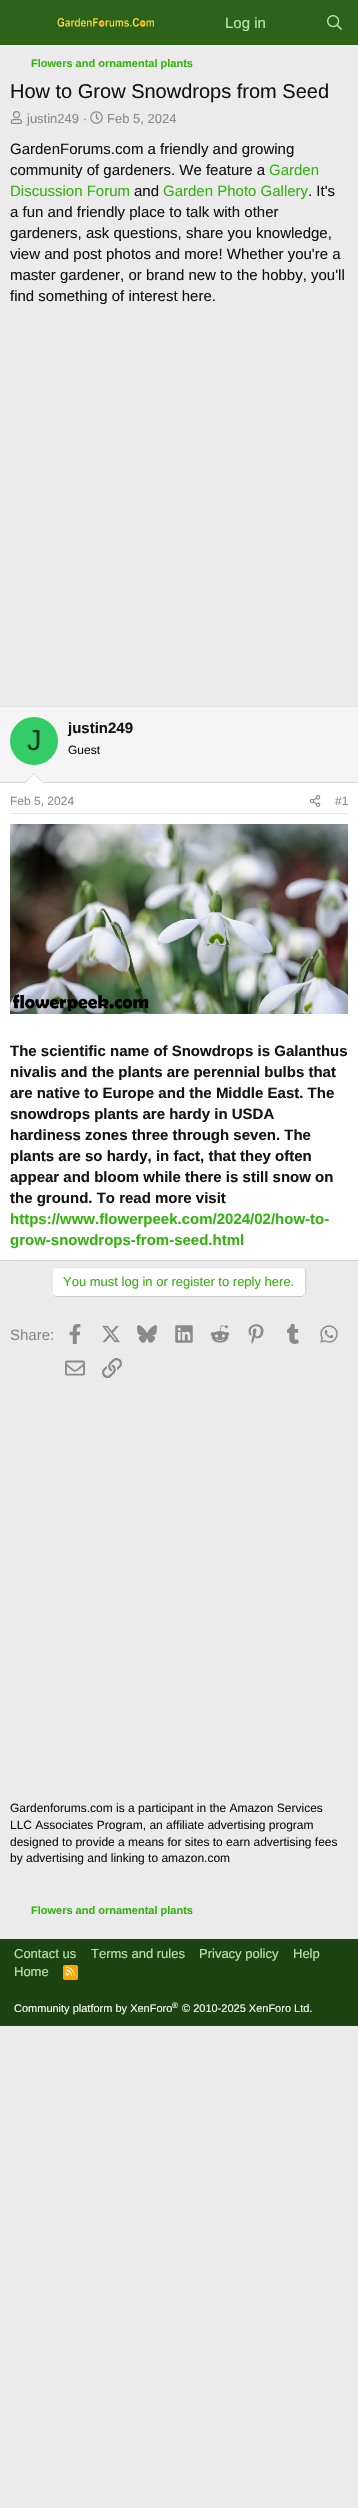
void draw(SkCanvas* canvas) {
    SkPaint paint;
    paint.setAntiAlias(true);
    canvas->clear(0xFFEBEBEB);
    paint.setColor(0xFF2B631A);
    canvas->drawRect(SkRect::MakeXYWH(0, 0, 358, 45), paint);
    canvas->drawImageRect(SkImages::DeferredFromEncodedData(SkData::MakeFromFileName("img1.png")), SkRect::MakeXYWH(56, 17, 99, 10), SkSamplingOptions());
    SkFont font1(fontMgr->matchFamilyStyle("Liberation Sans", SkFontStyle::Normal()), 15);
    font1.setSubpixel(true);
    paint.setColor(0xFFB9E4A5);
    canvas->drawString("Log in", 225, 28, font1, paint);
    canvas->drawImageRect(SkImages::DeferredFromEncodedData(SkData::MakeFromFileName("img2.png")), SkRect::MakeXYWH(327, 15, 15, 15), SkSamplingOptions());
    SkFont font2(fontMgr->matchFamilyStyle("Liberation Sans", SkFontStyle::Bold()), 11);
    font2.setSubpixel(true);
    paint.setColor(0xFF36B310);
    canvas->drawString("Flowers and ornamental plants", 31, 67, font2, paint);
    SkFont font3(fontMgr->matchFamilyStyle("Liberation Sans", SkFontStyle::Normal()), 20);
    font3.setSubpixel(true);
    paint.setColor(0xFF141414);
    canvas->drawString("How to Grow Snowdrops from Seed", 10, 98, font3, paint);
    canvas->drawImageRect(SkImages::DeferredFromEncodedData(SkData::MakeFromFileName("img3.png")), SkRect::MakeXYWH(10, 111, 13, 13), SkSamplingOptions());
    SkFont font4(fontMgr->matchFamilyStyle("Liberation Sans", SkFontStyle::Normal()), 13);
    font4.setSubpixel(true);
    paint.setColor(0xFF8A8A8A);
    canvas->drawString("justin249 ·", 27, 123, font4, paint);
    canvas->drawImageRect(SkImages::DeferredFromEncodedData(SkData::MakeFromFileName("img4.png")), SkRect::MakeXYWH(90, 111, 13, 13), SkSamplingOptions());
    canvas->drawString("Feb 5, 2024", 107, 123, font4, paint);
    paint.setColor(0xFF141414);
    canvas->drawString("GardenForums.com a friendly and growing", 10, 154, font1, paint);
    canvas->drawString("community of gardeners. We feature a", 10, 175, font1, paint);
    paint.setColor(0xFF36B310);
    canvas->drawString("Garden", 269, 175, font1, paint);
    canvas->drawString("Discussion Forum", 10, 196, font1, paint);
    paint.setColor(0xFF141414);
    canvas->drawString("and", 134, 196, font1, paint);
    paint.setColor(0xFF36B310);
    canvas->drawString("Garden Photo Gallery", 163, 196, font1, paint);
    paint.setColor(0xFF141414);
    canvas->drawString(". It's", 308, 196, font1, paint);
    canvas->drawString("a fun and friendly place to talk with other", 10, 217, font1, paint);
    canvas->drawString("gardeners, ask questions, share you knowledge,", 10, 238, font1, paint);
    canvas->drawString("view and post photos and more! Whether you're a", 10, 259, font1, paint);
    canvas->drawString("master gardener, or brand new to the hobby, you'll", 10, 280, font1, paint);
    canvas->drawString("find something of interest here.", 10, 301, font1, paint);
    paint.setColor(0xFFFFFFFF);
    canvas->drawRect(SkRect::MakeXYWH(0, 783, 358, 477), paint);
    paint.setColor(0xFFE0E0E0);
    canvas->drawRect(SkRect::MakeXYWH(0, 706, 358, 1), paint);
    paint.setColor(0xFFCCCCCC);
    canvas->drawRect(SkRect::MakeXYWH(0, 1260, 358, 1), paint);
    paint.setColor(0xFFF5F5F5);
    canvas->drawRect(SkRect::MakeXYWH(0, 707, 358, 75), paint);
    paint.setColor(0xFFD6D6D6);
    canvas->drawRect(SkRect::MakeXYWH(0, 782, 358, 1), paint);
    paint.setColor(0xFF33CC66);
    canvas->drawCircle(34, 741, 24, paint);
    SkFont font5(fontMgr->matchFamilyStyle("Liberation Sans", SkFontStyle::Normal()), 29);
    font5.setSubpixel(true);
    paint.setColor(0xFF0F3D1F);
    canvas->drawString("J", 27, 750, font5, paint);
    SkFont font6(fontMgr->matchFamilyStyle("Liberation Sans", SkFontStyle::Bold()), 15);
    font6.setSubpixel(true);
    paint.setColor(0xFF141414);
    canvas->drawString("justin249", 68, 733, font6, paint);
    SkFont font7(fontMgr->matchFamilyStyle("Liberation Sans", SkFontStyle::Normal()), 12);
    font7.setSubpixel(true);
    canvas->drawString("Guest", 68, 754, font7, paint);
    paint.setColor(0xFFD6D6D6);
    canvas->drawPath(SkPathBuilder().moveTo(44, 783).lineTo(24, 783).lineTo(34, 773).close().detach(), paint);
    paint.setColor(0xFFFFFFFF);
    canvas->drawPath(SkPathBuilder().moveTo(43, 783).lineTo(25, 783).lineTo(34, 774).close().detach(), paint);
    paint.setColor(0xFFE5E5E5);
    canvas->drawRect(SkRect::MakeXYWH(10, 813, 338, 1), paint);
    paint.setColor(0xFF8A8A8A);
    canvas->drawString("Feb 5, 2024", 10, 805, font7, paint);
    canvas->drawImageRect(SkImages::DeferredFromEncodedData(SkData::MakeFromFileName("img5.png")), SkRect::MakeXYWH(309, 795, 12, 12), SkSamplingOptions());
    canvas->drawString("#1", 335, 805, font7, paint);
    canvas->drawImageRect(SkImages::DeferredFromEncodedData(SkData::MakeFromFileName("img6.png")), SkRect::MakeXYWH(10, 824, 338, 190), SkSamplingOptions());
    paint.setColor(0xFF141414);
    canvas->drawString("The scientific name of Snowdrops is Galanthus", 10, 1056, font6, paint);
    canvas->drawString("nivalis and the plants are perennial bulbs that", 10, 1077, font6, paint);
    canvas->drawString("are native to Europe and the Middle East. The", 10, 1098, font6, paint);
    canvas->drawString("snowdrops plants are hardy in USDA", 10, 1119, font6, paint);
    canvas->drawString("hardiness zones three through seven. The", 10, 1140, font6, paint);
    canvas->drawString("plants are so hardy, in fact, that they often", 10, 1161, font6, paint);
    canvas->drawString("appear and bloom while there is still snow on", 10, 1182, font6, paint);
    canvas->drawString("the ground. To read more visit", 10, 1203, font6, paint);
    paint.setColor(0xFF36B310);
    canvas->drawString("https://www.flowerpeek.com/2024/02/how-to-", 10, 1224, font6, paint);
    canvas->drawString("grow-snowdrops-from-seed.html", 10, 1245, font6, paint);
    paint.setColor(0xFFFFFFFF);
    canvas->drawRoundRect(SkRect::MakeXYWH(52, 1267, 254, 30), 4, 4, paint);
    paint.setStyle(SkPaint::kStroke_Style);
    paint.setStrokeWidth(1);
    paint.setColor(0xFFC9C9C9);
    canvas->drawPath(SkPathBuilder().moveTo(304.5f, 1268.5f).cubicTo(306.5f, 1270.5f, 305.5f, 1279, 305.5f, 1282).cubicTo(305.5f, 1285, 307, 1293.5f, 304, 1295.5f).lineTo(302.5f, 1296.5f).lineTo(56, 1296.5f).lineTo(53.5f, 1295.5f).detach(), paint);
    paint.setColor(0xFFE3E3E3);
    canvas->drawPath(SkPathBuilder().moveTo(53.5f, 1295.5f).cubicTo(51.5f, 1293.5f, 52.5f, 1285, 52.5f, 1282).cubicTo(52.5f, 1279, 51, 1270.5f, 54, 1268.5f).lineTo(55.5f, 1267.5f).lineTo(302, 1267.5f).lineTo(304.5f, 1268.5f).detach(), paint);
    paint.setStyle(SkPaint::kFill_Style);
    paint.setColor(0xFF36B310);
    canvas->drawString("You must log in or register to reply here.", 63, 1286, font4, paint);
    paint.setColor(0xFF8A8A8A);
    canvas->drawString("Share:", 10, 1340, font1, paint);
    canvas->drawImageRect(SkImages::DeferredFromEncodedData(SkData::MakeFromFileName("img7.png")), SkRect::MakeXYWH(69, 1324, 12, 20), SkSamplingOptions());
    canvas->drawImageRect(SkImages::DeferredFromEncodedData(SkData::MakeFromFileName("img8.png")), SkRect::MakeXYWH(102, 1325, 18, 18), SkSamplingOptions());
    canvas->drawImageRect(SkImages::DeferredFromEncodedData(SkData::MakeFromFileName("img9.png")), SkRect::MakeXYWH(137, 1325, 20, 18), SkSamplingOptions());
    canvas->drawImageRect(SkImages::DeferredFromEncodedData(SkData::MakeFromFileName("img10.png")), SkRect::MakeXYWH(175, 1325, 18, 18), SkSamplingOptions());
    canvas->drawImageRect(SkImages::DeferredFromEncodedData(SkData::MakeFromFileName("img11.png")), SkRect::MakeXYWH(210, 1325, 20, 18), SkSamplingOptions());
    canvas->drawImageRect(SkImages::DeferredFromEncodedData(SkData::MakeFromFileName("img12.png")), SkRect::MakeXYWH(248, 1324, 16, 20), SkSamplingOptions());
    canvas->drawImageRect(SkImages::DeferredFromEncodedData(SkData::MakeFromFileName("img13.png")), SkRect::MakeXYWH(287, 1324, 12, 20), SkSamplingOptions());
    canvas->drawImageRect(SkImages::DeferredFromEncodedData(SkData::MakeFromFileName("img14.png")), SkRect::MakeXYWH(320, 1325, 18, 18), SkSamplingOptions());
    canvas->drawImageRect(SkImages::DeferredFromEncodedData(SkData::MakeFromFileName("img15.png")), SkRect::MakeXYWH(65, 1360, 20, 16), SkSamplingOptions());
    canvas->drawImageRect(SkImages::DeferredFromEncodedData(SkData::MakeFromFileName("img16.png")), SkRect::MakeXYWH(102, 1358, 20, 20), SkSamplingOptions());
    paint.setColor(0xFF141414);
    canvas->drawString("Gardenforums.com is a participant in the Amazon Services", 10, 1812, font7, paint);
    canvas->drawString("LLC Associates Program, an affiliate advertising program", 10, 1829, font7, paint);
    canvas->drawString("designed to provide a means for sites to earn advertising fees", 10, 1846, font7, paint);
    canvas->drawString("by advertising and linking to amazon.com", 10, 1862, font7, paint);
    paint.setColor(0xFF36B310);
    canvas->drawString("Flowers and ornamental plants", 31, 1914, font2, paint);
    paint.setColor(0xFF1D4312);
    canvas->drawRect(SkRect::MakeXYWH(0, 1939, 358, 87), paint);
    paint.setColor(0xFFB9E4A5);
    canvas->drawString("Contact us", 14, 1958, font4, paint);
    canvas->drawString("Terms and rules", 91, 1958, font4, paint);
    canvas->drawString("Privacy policy", 199, 1958, font4, paint);
    canvas->drawString("Help", 293, 1958, font4, paint);
    canvas->drawString("Home", 14, 1976, font4, paint);
    paint.setColor(0xFFFFA500);
    canvas->drawRoundRect(SkRect::MakeXYWH(63, 1965, 15, 15), 2, 2, paint);
    canvas->drawImageRect(SkImages::DeferredFromEncodedData(SkData::MakeFromFileName("img17.png")), SkRect::MakeXYWH(65, 1966, 10, 10), SkSamplingOptions());
    SkFont font8(fontMgr->matchFamilyStyle("Liberation Sans", SkFontStyle::Normal()), 11);
    font8.setSubpixel(true);
    paint.setColor(0xFFF4FCF0);
    canvas->drawString("Community platform by XenForo", 14, 2012, font8, paint);
    SkFont font9(fontMgr->matchFamilyStyle("Liberation Sans", SkFontStyle::Normal()), 8);
    font9.setSubpixel(true);
    canvas->drawString("®", 172, 2008, font9, paint);
    canvas->drawString("© 2010-2025 XenForo Ltd.", 182, 2012, font8, paint);
}
